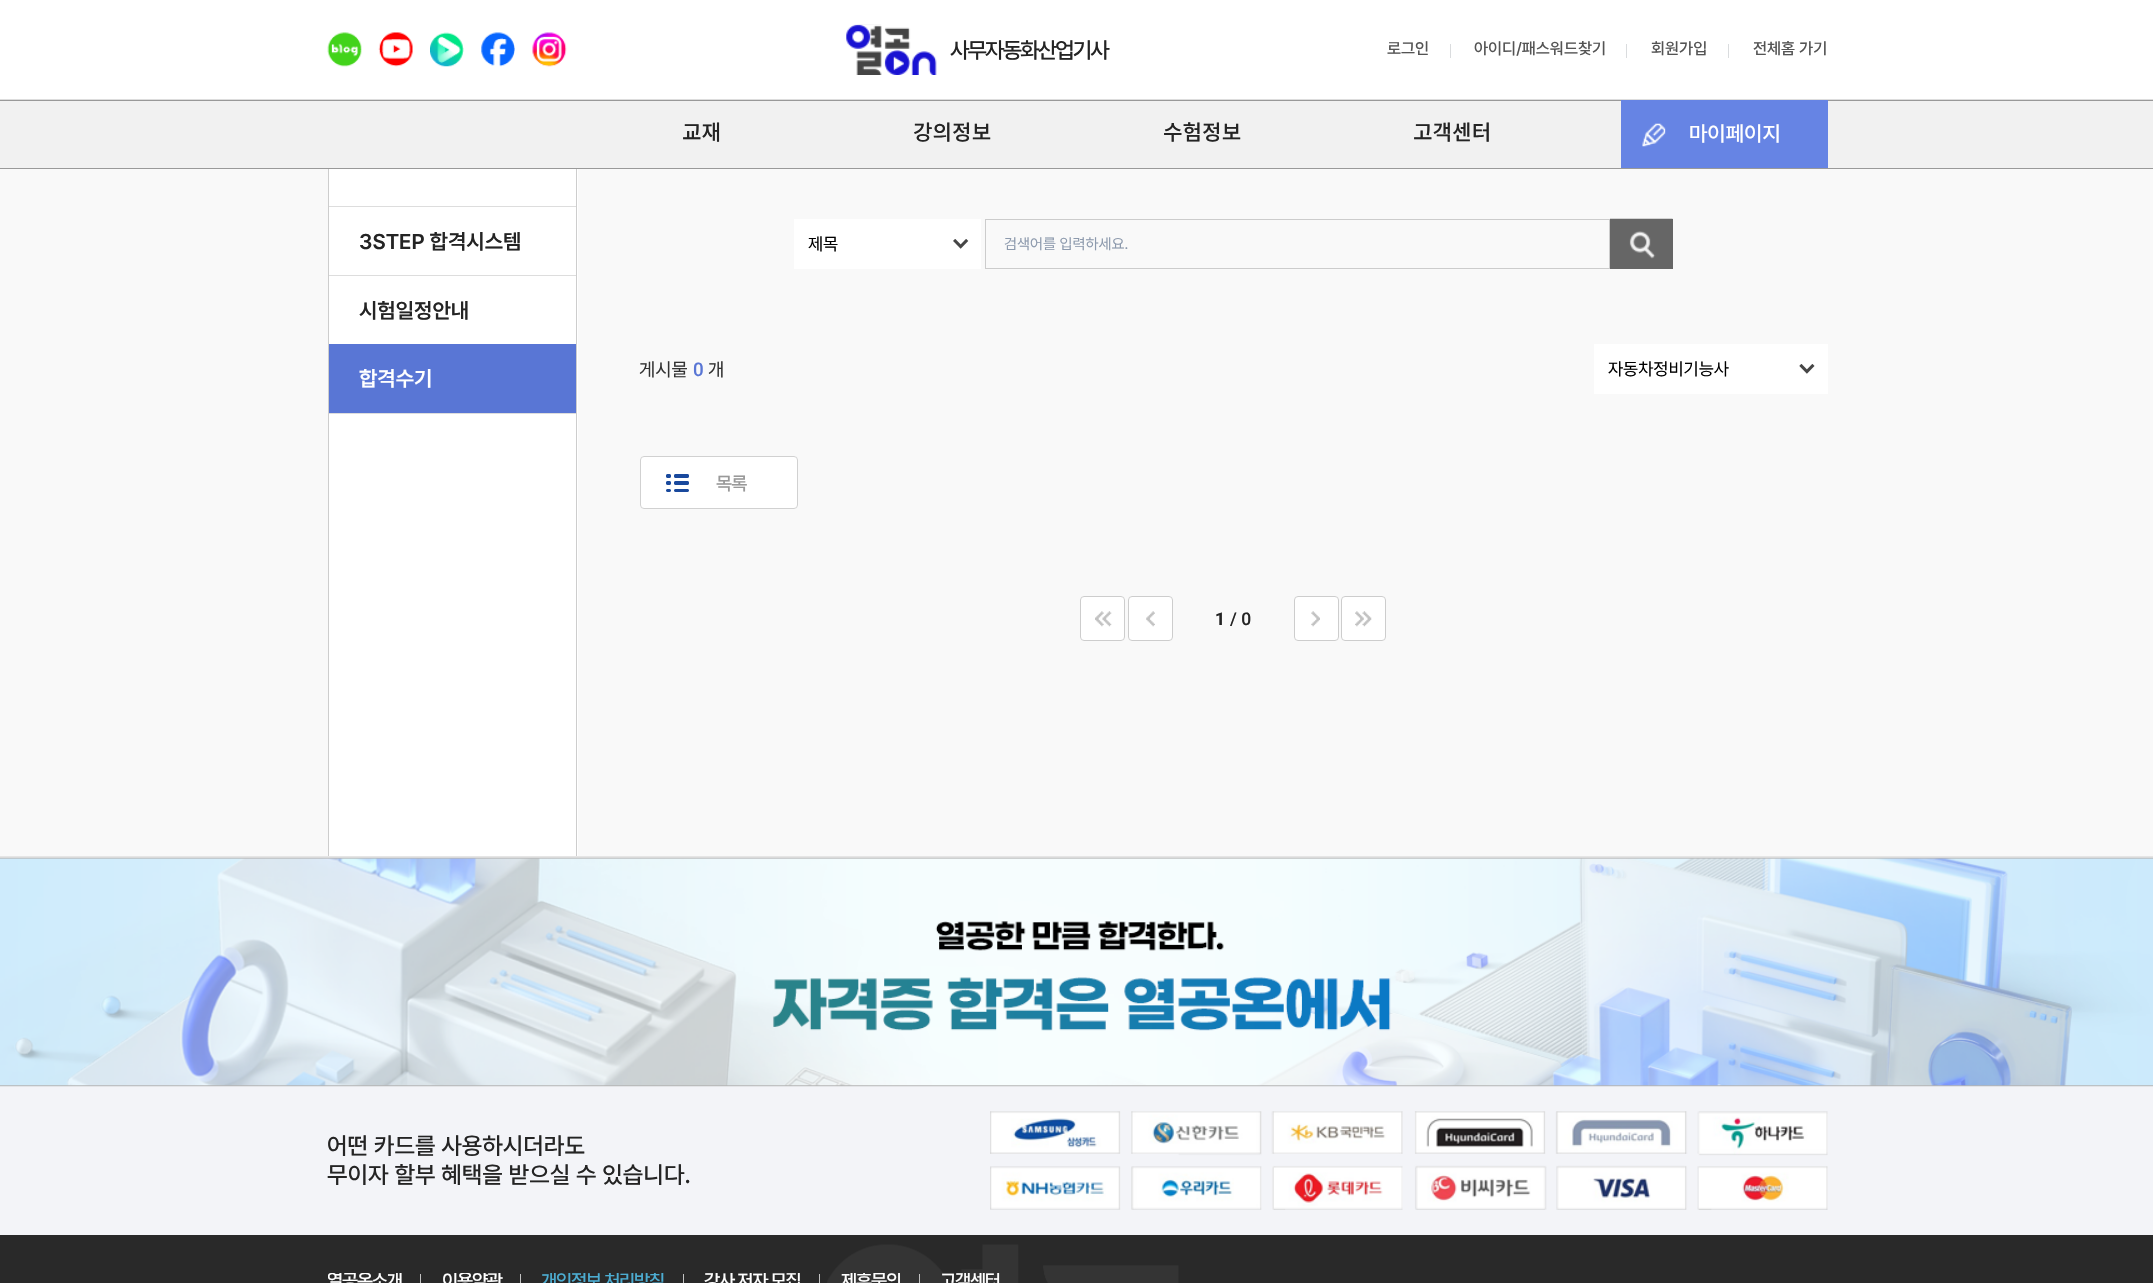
void draw(SkCanvas* canvas) {
    SkPaint paint;
    paint.setAntiAlias(true);
    auto spacedText = [&](const char* s, float x, float y, const SkFont& font, const SkPaint& ink, float letter, float word) {
        std::vector<SkGlyphID> glyphs(font.countText(s, strlen(s), SkTextEncoding::kUTF8));
        std::vector<float> xs(glyphs.size());
        font.textToGlyphs(s, strlen(s), SkTextEncoding::kUTF8, glyphs);
        font.getXPos(glyphs, xs, x);
        float extra = 0;
        for (size_t i = 0; i < glyphs.size(); i++) {
            xs[i] += extra;
            extra += letter + word * (glyphs[i] == font.unicharToGlyph(' '));
        }
        canvas->drawTextBlob(SkTextBlob::MakeFromPosHGlyphs(glyphs, xs, y, font), 0, 0, ink);
    };
    canvas->clear(0xFFFFFFFF);
    paint.setColor(0xFFDDDDDD);
    canvas->drawRect(SkRect::MakeXYWH(0, 99, 2153, 1), paint);
    canvas->drawImageRect(SkImages::DeferredFromEncodedData(SkData::MakeFromFileName("img1.png")), SkRect::MakeXYWH(327, 32, 35, 35), SkSamplingOptions());
    canvas->drawImageRect(SkImages::DeferredFromEncodedData(SkData::MakeFromFileName("img2.png")), SkRect::MakeXYWH(378, 32, 35, 35), SkSamplingOptions());
    canvas->drawImageRect(SkImages::DeferredFromEncodedData(SkData::MakeFromFileName("img3.png")), SkRect::MakeXYWH(430, 32, 34, 35), SkSamplingOptions());
    canvas->drawImageRect(SkImages::DeferredFromEncodedData(SkData::MakeFromFileName("img4.png")), SkRect::MakeXYWH(481, 32, 34, 35), SkSamplingOptions());
    canvas->drawImageRect(SkImages::DeferredFromEncodedData(SkData::MakeFromFileName("img5.png")), SkRect::MakeXYWH(532, 32, 35, 35), SkSamplingOptions());
    canvas->drawImageRect(SkImages::DeferredFromEncodedData(SkData::MakeFromFileName("img6.png")), SkRect::MakeXYWH(846, 24, 91, 51), SkSamplingOptions());
    SkFont font1(fontMgr->matchFamilyStyle("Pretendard", SkFontStyle(500, SkFontStyle::kNormal_Width, SkFontStyle::kUpright_Slant)), 22.5f);
    font1.setSubpixel(true);
    paint.setColor(0xFF242424);
    spacedText("사무자동화산업기사", 950, 58, font1, paint, -1.9f, 0);
    SkFont font2(fontMgr->matchFamilyStyle("Pretendard", SkFontStyle(500, SkFontStyle::kNormal_Width, SkFontStyle::kUpright_Slant)), 16.25f);
    font2.setSubpixel(true);
    paint.setColor(0xFF545454);
    canvas->drawString("로그인", 1387, 54, font2, paint);
    paint.setColor(0xFFDADCDE);
    canvas->drawRect(SkRect::MakeXYWH(1450, 44, 1, 14), paint);
    paint.setColor(0xFF545454);
    canvas->drawString("아이디/패스워드찾기", 1474, 54, font2, paint);
    paint.setColor(0xFFDADCDE);
    canvas->drawRect(SkRect::MakeXYWH(1626, 44, 1, 14), paint);
    paint.setColor(0xFF545454);
    canvas->drawString("회원가입", 1651, 54, font2, paint);
    paint.setColor(0xFFDADCDE);
    canvas->drawRect(SkRect::MakeXYWH(1728, 44, 1, 14), paint);
    paint.setColor(0xFF545454);
    canvas->drawString("전체홈 가기", 1753, 54, font2, paint);
    paint.setColor(0xFFF1F1F1);
    canvas->drawRect(SkRect::MakeXYWH(0, 101, 2153, 67), paint);
    paint.setColor(0xFF999999);
    canvas->drawRect(SkRect::MakeXYWH(0, 100, 2153, 1), paint);
    canvas->drawRect(SkRect::MakeXYWH(0, 168, 2153, 1), paint);
    SkFont font3(fontMgr->matchFamilyStyle("Noto Sans KR", SkFontStyle(500, SkFontStyle::kNormal_Width, SkFontStyle::kUpright_Slant)), 21.25f);
    font3.setSubpixel(true);
    paint.setColor(0xFF242424);
    canvas->drawString("교재", 682, 140, font3, paint);
    canvas->drawString("강의정보", 913, 140, font3, paint);
    canvas->drawString("수험정보", 1163, 140, font3, paint);
    canvas->drawString("고객센터", 1413, 140, font3, paint);
    paint.setColor(0xFF6684E4);
    canvas->drawRect(SkRect::MakeXYWH(1621, 100, 207, 68), paint);
    canvas->drawImageRect(SkImages::DeferredFromEncodedData(SkData::MakeFromFileName("img7.png")), SkRect::MakeXYWH(1642, 123, 24, 24), SkSamplingOptions());
    SkFont font4(fontMgr->matchFamilyStyle("Pretendard", SkFontStyle(500, SkFontStyle::kNormal_Width, SkFontStyle::kUpright_Slant)), 21.25f);
    font4.setSubpixel(true);
    paint.setColor(0xFFFFFFFF);
    canvas->drawString("마이페이지", 1689, 141, font4, paint);
    paint.setColor(0xFFF9F9F9);
    canvas->drawRect(SkRect::MakeXYWH(0, 169, 2153, 687), paint);
    paint.setColor(0xFFFFFFFF);
    canvas->drawRect(SkRect::MakeXYWH(329, 169, 249, 687), paint);
    paint.setColor(0xFFCDCDCD);
    canvas->drawRect(SkRect::MakeXYWH(576, 169, 1, 687), paint);
    canvas->drawRect(SkRect::MakeXYWH(328, 169, 1, 687), paint);
    paint.setColor(0xFFDDDDDD);
    canvas->drawRect(SkRect::MakeXYWH(329, 413, 247, 1), paint);
    canvas->drawRect(SkRect::MakeXYWH(329, 206, 247, 1), paint);
    SkFont font5(fontMgr->matchFamilyStyle("Pretendard", SkFontStyle(600, SkFontStyle::kNormal_Width, SkFontStyle::kUpright_Slant)), 21.25f);
    font5.setSubpixel(true);
    paint.setColor(0xFF242424);
    canvas->drawString("3STEP 합격시스템", 359, 249, font5, paint);
    paint.setColor(0xFFDDDDDD);
    canvas->drawRect(SkRect::MakeXYWH(329, 275, 247, 1), paint);
    paint.setColor(0xFF242424);
    canvas->drawString("시험일정안내", 359, 318, font5, paint);
    paint.setColor(0xFF5976D5);
    canvas->drawRect(SkRect::MakeXYWH(329, 344, 247, 69), paint);
    paint.setColor(0xFFFFFFFF);
    canvas->drawString("합격수기", 359, 386, font5, paint);
    canvas->drawRect(SkRect::MakeXYWH(794, 219, 187, 50), paint);
    canvas->drawImageRect(SkImages::DeferredFromEncodedData(SkData::MakeFromFileName("img8.png")), SkRect::MakeXYWH(953, 239, 16, 10), SkSamplingOptions());
    SkFont font6(fontMgr->matchFamilyStyle("Pretendard", SkFontStyle::Normal()), 17.5f);
    font6.setSubpixel(true);
    paint.setColor(0xFF000000);
    canvas->drawString("제목", 808, 250, font6, paint);
    paint.setStyle(SkPaint::kStroke_Style);
    paint.setStrokeWidth(1);
    paint.setColor(0xFFCCCCCC);
    canvas->drawRect(SkRect::MakeXYWH(985.5f, 219.5f, 624, 49), paint);
    SkFont font7(fontMgr->matchFamilyStyle("Pretendard", SkFontStyle::Normal()), 15);
    font7.setSubpixel(true);
    paint.setStyle(SkPaint::kFill_Style);
    paint.setColor(0xFF8D9AAD);
    canvas->drawString("검색어를 입력하세요.", 1004, 249, font7, paint);
    paint.setColor(0xFF666666);
    canvas->drawRect(SkRect::MakeXYWH(1610, 219, 63, 50), paint);
    canvas->drawImageRect(SkImages::DeferredFromEncodedData(SkData::MakeFromFileName("img9.png")), SkRect::MakeXYWH(1610, 218, 63, 41), SkSamplingOptions());
    SkFont font8(fontMgr->matchFamilyStyle("Pretendard", SkFontStyle::Normal()), 18.75f);
    font8.setSubpixel(true);
    paint.setColor(0xFF333333);
    canvas->drawString("게시물", 639, 376, font8, paint);
    SkFont font9(fontMgr->matchFamilyStyle("Roboto", SkFontStyle(500, SkFontStyle::kNormal_Width, SkFontStyle::kUpright_Slant)), 18.75f);
    font9.setSubpixel(true);
    paint.setColor(0xFF5976D5);
    canvas->drawString("0", 693, 376, font9, paint);
    paint.setColor(0xFF333333);
    canvas->drawString("개", 708, 376, font8, paint);
    paint.setColor(0xFFFFFFFF);
    canvas->drawRect(SkRect::MakeXYWH(1594, 344, 234, 50), paint);
    canvas->drawImageRect(SkImages::DeferredFromEncodedData(SkData::MakeFromFileName("img10.png")), SkRect::MakeXYWH(1799, 364, 16, 10), SkSamplingOptions());
    paint.setColor(0xFF000000);
    canvas->drawString("자동차정비기능사", 1608, 375, font6, paint);
    paint.setColor(0xFFFFFFFF);
    canvas->drawRoundRect(SkRect::MakeXYWH(640, 456, 158, 53), 4, 4, paint);
    canvas->drawImageRect(SkImages::DeferredFromEncodedData(SkData::MakeFromFileName("img11.png")), SkRect::MakeXYWH(666, 474, 23, 18), SkSamplingOptions());
    paint.setStyle(SkPaint::kStroke_Style);
    paint.setColor(0xFFD1D1D1);
    canvas->drawRoundRect(SkRect::MakeXYWH(640.5f, 456.5f, 157, 52), 3.5f, 3.5f, paint);
    SkFont font10(fontMgr->matchFamilyStyle("Pretendard", SkFontStyle(500, SkFontStyle::kNormal_Width, SkFontStyle::kUpright_Slant)), 18.75f);
    font10.setSubpixel(true);
    paint.setStyle(SkPaint::kFill_Style);
    paint.setColor(0xFF999999);
    spacedText("목록", 716, 490, font10, paint, -1, 0);
    paint.setColor(0xFFFFFFFF);
    canvas->drawRoundRect(SkRect::MakeXYWH(1080, 596, 45, 45), 4, 4, paint);
    canvas->drawImageRect(SkImages::DeferredFromEncodedData(SkData::MakeFromFileName("img12.png")), SkRect::MakeXYWH(1095, 611, 17, 16), SkSamplingOptions());
    paint.setStyle(SkPaint::kStroke_Style);
    paint.setColor(0xFFCDCDCD);
    canvas->drawRoundRect(SkRect::MakeXYWH(1080.5f, 596.5f, 44, 44), 3.5f, 3.5f, paint);
    paint.setStyle(SkPaint::kFill_Style);
    paint.setColor(0xFFFFFFFF);
    canvas->drawRoundRect(SkRect::MakeXYWH(1128, 596, 45, 45), 4, 4, paint);
    canvas->drawImageRect(SkImages::DeferredFromEncodedData(SkData::MakeFromFileName("img13.png")), SkRect::MakeXYWH(1146, 611, 9, 16), SkSamplingOptions());
    paint.setStyle(SkPaint::kStroke_Style);
    paint.setColor(0xFFCDCDCD);
    canvas->drawRoundRect(SkRect::MakeXYWH(1128.5f, 596.5f, 44, 44), 3.5f, 3.5f, paint);
    SkFont font11(fontMgr->matchFamilyStyle("Roboto", SkFontStyle::Bold()), 17.5f);
    font11.setSubpixel(true);
    paint.setStyle(SkPaint::kFill_Style);
    paint.setColor(0xFF242424);
    canvas->drawString("1", 1215, 625, font11, paint);
    SkFont font12(fontMgr->matchFamilyStyle("Roboto", SkFontStyle(500, SkFontStyle::kNormal_Width, SkFontStyle::kUpright_Slant)), 17.5f);
    font12.setSubpixel(true);
    canvas->drawString("/ 0", 1230, 625, font12, paint);
    paint.setColor(0xFFFFFFFF);
    canvas->drawRoundRect(SkRect::MakeXYWH(1294, 596, 45, 45), 4, 4, paint);
    canvas->drawImageRect(SkImages::DeferredFromEncodedData(SkData::MakeFromFileName("img14.png")), SkRect::MakeXYWH(1311, 611, 9, 16), SkSamplingOptions());
    paint.setStyle(SkPaint::kStroke_Style);
    paint.setColor(0xFFCDCDCD);
    canvas->drawRoundRect(SkRect::MakeXYWH(1294.5f, 596.5f, 44, 44), 3.5f, 3.5f, paint);
    paint.setStyle(SkPaint::kFill_Style);
    paint.setColor(0xFFFFFFFF);
    canvas->drawRoundRect(SkRect::MakeXYWH(1341, 596, 45, 45), 4, 4, paint);
    canvas->drawImageRect(SkImages::DeferredFromEncodedData(SkData::MakeFromFileName("img15.png")), SkRect::MakeXYWH(1355, 611, 17, 16), SkSamplingOptions());
    paint.setStyle(SkPaint::kStroke_Style);
    paint.setColor(0xFFCDCDCD);
    canvas->drawRoundRect(SkRect::MakeXYWH(1341.5f, 596.5f, 44, 44), 3.5f, 3.5f, paint);
    paint.setStyle(SkPaint::kFill_Style);
    paint.setColor(0xFFE5E5E5);
    canvas->drawRect(SkRect::MakeXYWH(0, 856, 2153, 1), paint);
    paint.setColor(0xFFF3F4F8);
    canvas->drawRect(SkRect::MakeXYWH(0, 1086, 2153, 149), paint);
    canvas->drawImageRect(SkImages::DeferredFromEncodedData(SkData::MakeFromFileName("img16.png")), SkRect::MakeXYWH(0, 857, 2153, 230), SkSamplingOptions());
    SkFont font13(fontMgr->matchFamilyStyle("Pretendard", SkFontStyle(500, SkFontStyle::kNormal_Width, SkFontStyle::kUpright_Slant)), 23.75f);
    font13.setSubpixel(true);
    paint.setColor(0xFF242424);
    canvas->drawString("어떤 카드를 사용하시더라도", 327, 1154, font13, paint);
    canvas->drawString("무이자 할부 혜택을 받으실 수 있습니다.", 327, 1183, font13, paint);
    canvas->drawImageRect(SkImages::DeferredFromEncodedData(SkData::MakeFromFileName("img17.png")), SkRect::MakeXYWH(990, 1111, 838, 99), SkSamplingOptions());
    paint.setColor(0xFF292929);
    canvas->drawRect(SkRect::MakeXYWH(0, 1235, 2153, 48), paint);
    canvas->save();
    canvas->clipRect(SkRect::MakeXYWH(328, 1273, 1500, 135));
    paint.setColor(0xFFFFFFFF);
    spacedText("열공온소개", 327, 1287, font10, paint, -1.25f, 0);
    canvas->restore();
    paint.setColor(0xFFC2C2C2);
    canvas->drawRect(SkRect::MakeXYWH(420, 1274, 1, 9), paint);
    canvas->save();
    canvas->clipRect(SkRect::MakeXYWH(328, 1273, 1500, 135));
    paint.setColor(0xFFFFFFFF);
    spacedText("이용약관", 442, 1287, font10, paint, -1.25f, 0);
    canvas->restore();
    paint.setColor(0xFFC2C2C2);
    canvas->drawRect(SkRect::MakeXYWH(520, 1274, 1, 9), paint);
    canvas->save();
    canvas->clipRect(SkRect::MakeXYWH(328, 1273, 1500, 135));
    paint.setColor(0xFF4CACD1);
    spacedText("개인정보 처리방침", 541, 1287, font10, paint, -1.25f, 0);
    canvas->restore();
    paint.setColor(0xFFC2C2C2);
    canvas->drawRect(SkRect::MakeXYWH(683, 1274, 1, 9), paint);
    canvas->save();
    canvas->clipRect(SkRect::MakeXYWH(328, 1273, 1500, 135));
    paint.setColor(0xFFFFFFFF);
    spacedText("강사 저자 모집", 704, 1287, font10, paint, -1.25f, 0);
    canvas->restore();
    paint.setColor(0xFFC2C2C2);
    canvas->drawRect(SkRect::MakeXYWH(819, 1274, 1, 9), paint);
    canvas->drawImageRect(SkImages::DeferredFromEncodedData(SkData::MakeFromFileName("img18.png")), SkRect::MakeXYWH(827, 1244, 352, 39), SkSamplingOptions());
    canvas->save();
    canvas->clipRect(SkRect::MakeXYWH(328, 1273, 1500, 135));
    paint.setColor(0xFFFFFFFF);
    spacedText("제휴문의", 841, 1287, font10, paint, -1.25f, 0);
    canvas->restore();
    paint.setColor(0xFFC2C2C2);
    canvas->drawRect(SkRect::MakeXYWH(919, 1274, 1, 9), paint);
    canvas->save();
    canvas->clipRect(SkRect::MakeXYWH(328, 1273, 1500, 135));
    paint.setColor(0xFFFFFFFF);
    spacedText("고객센터", 940, 1287, font10, paint, -1.25f, 0);
    canvas->restore();
}
